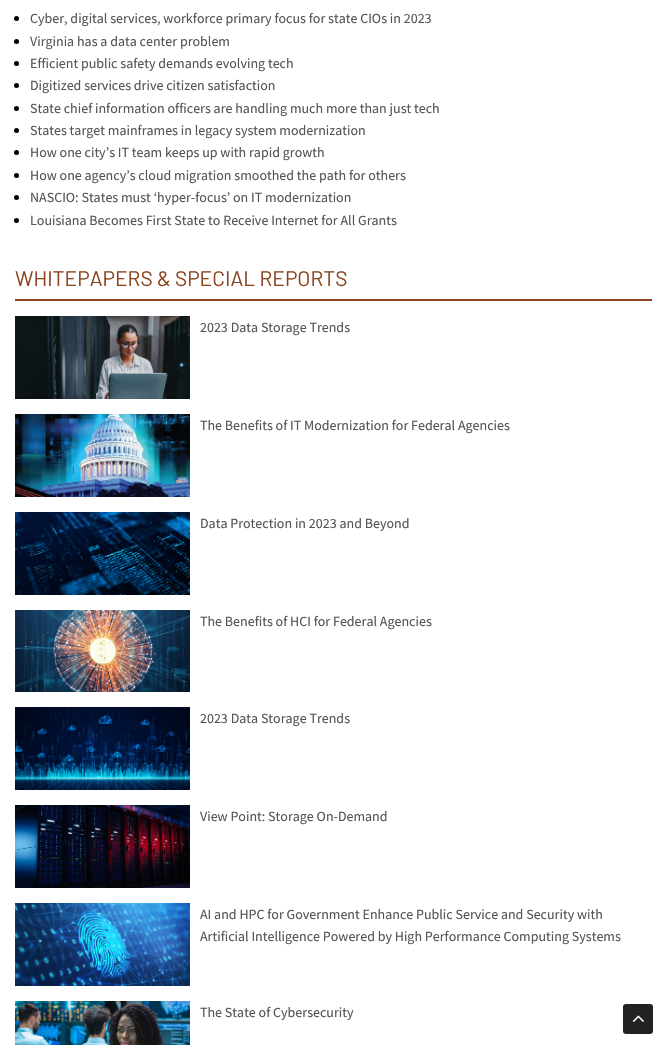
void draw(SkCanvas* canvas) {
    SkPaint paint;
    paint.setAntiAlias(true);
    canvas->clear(0xFFFFFFFF);
    paint.setColor(0xFF000000);
    canvas->drawCircle(16.5f, 18.5f, 2.5f, paint);
    SkFont font1(fontMgr->matchFamilyStyle("Source Sans Pro", SkFontStyle::Normal()), 14);
    font1.setSubpixel(true);
    paint.setColor(0xFF555555);
    canvas->drawString("Cyber, digital services, workforce primary focus for state CIOs in 2023", 30, 23, font1, paint);
    paint.setColor(0xFF000000);
    canvas->drawCircle(16.5f, 41.5f, 2.5f, paint);
    paint.setColor(0xFF555555);
    canvas->drawString("Virginia has a data center problem", 30, 46, font1, paint);
    paint.setColor(0xFF000000);
    canvas->drawCircle(16.5f, 63.5f, 2.5f, paint);
    paint.setColor(0xFF555555);
    canvas->drawString("Efficient public safety demands evolving tech", 30, 68, font1, paint);
    paint.setColor(0xFF000000);
    canvas->drawCircle(16.5f, 85.5f, 2.5f, paint);
    paint.setColor(0xFF555555);
    canvas->drawString("Digitized services drive citizen satisfaction", 30, 90, font1, paint);
    paint.setColor(0xFF000000);
    canvas->drawCircle(16.5f, 108.5f, 2.5f, paint);
    paint.setColor(0xFF555555);
    canvas->drawString("State chief information officers are handling much more than just tech", 30, 113, font1, paint);
    paint.setColor(0xFF000000);
    canvas->drawCircle(16.5f, 130.5f, 2.5f, paint);
    paint.setColor(0xFF555555);
    canvas->drawString("States target mainframes in legacy system modernization", 30, 135, font1, paint);
    paint.setColor(0xFF000000);
    canvas->drawCircle(16.5f, 152.5f, 2.5f, paint);
    paint.setColor(0xFF555555);
    canvas->drawString("How one city’s IT team keeps up with rapid growth", 30, 157, font1, paint);
    paint.setColor(0xFF000000);
    canvas->drawCircle(16.5f, 175.5f, 2.5f, paint);
    paint.setColor(0xFF555555);
    canvas->drawString("How one agency’s cloud migration smoothed the path for others", 30, 180, font1, paint);
    paint.setColor(0xFF000000);
    canvas->drawCircle(16.5f, 197.5f, 2.5f, paint);
    paint.setColor(0xFF555555);
    canvas->drawString("NASCIO: States must ‘hyper-focus’ on IT modernization", 30, 202, font1, paint);
    paint.setColor(0xFF000000);
    canvas->drawCircle(16.5f, 220.5f, 2.5f, paint);
    paint.setColor(0xFF555555);
    canvas->drawString("Louisiana Becomes First State to Receive Internet for All Grants", 30, 225, font1, paint);
    paint.setColor(0xFF89441E);
    canvas->drawRect(SkRect::MakeXYWH(15, 299, 637, 2), paint);
    SkFont font2(fontMgr->matchFamilyStyle("Barlow", SkFontStyle::Normal()), 21);
    font2.setSubpixel(true);
    canvas->drawString("WHITEPAPERS & SPECIAL REPORTS", 15, 286, font2, paint);
    canvas->drawImageRect(SkImages::DeferredFromEncodedData(SkData::MakeFromFileName("img1.png")), SkRect::MakeXYWH(15, 316, 175, 83), SkSamplingOptions());
    paint.setColor(0xFF555555);
    canvas->drawString("2023 Data Storage Trends", 200, 332, font1, paint);
    canvas->drawImageRect(SkImages::DeferredFromEncodedData(SkData::MakeFromFileName("img2.png")), SkRect::MakeXYWH(15, 414, 175, 83), SkSamplingOptions());
    canvas->drawString("The Benefits of IT Modernization for Federal Agencies", 200, 430, font1, paint);
    canvas->drawImageRect(SkImages::DeferredFromEncodedData(SkData::MakeFromFileName("img3.png")), SkRect::MakeXYWH(15, 512, 175, 83), SkSamplingOptions());
    canvas->drawString("Data Protection in 2023 and Beyond", 200, 528, font1, paint);
    canvas->drawImageRect(SkImages::DeferredFromEncodedData(SkData::MakeFromFileName("img4.png")), SkRect::MakeXYWH(15, 610, 175, 82), SkSamplingOptions());
    canvas->drawString("The Benefits of HCI for Federal Agencies", 200, 626, font1, paint);
    canvas->drawImageRect(SkImages::DeferredFromEncodedData(SkData::MakeFromFileName("img5.png")), SkRect::MakeXYWH(15, 707, 175, 83), SkSamplingOptions());
    canvas->drawString("2023 Data Storage Trends", 200, 723, font1, paint);
    canvas->drawImageRect(SkImages::DeferredFromEncodedData(SkData::MakeFromFileName("img6.png")), SkRect::MakeXYWH(15, 805, 175, 83), SkSamplingOptions());
    canvas->drawString("View Point: Storage On-Demand", 200, 821, font1, paint);
    canvas->drawImageRect(SkImages::DeferredFromEncodedData(SkData::MakeFromFileName("img7.png")), SkRect::MakeXYWH(15, 903, 175, 83), SkSamplingOptions());
    canvas->drawString("AI and HPC for Government Enhance Public Service and Security with", 200, 919, font1, paint);
    canvas->drawString("Artificial Intelligence Powered by High Performance Computing Systems", 200, 941, font1, paint);
    canvas->drawImageRect(SkImages::DeferredFromEncodedData(SkData::MakeFromFileName("img8.png")), SkRect::MakeXYWH(15, 1001, 175, 44), SkSamplingOptions());
    canvas->drawString("The State of Cybersecurity", 200, 1017, font1, paint);
    paint.setColor(0xFF222222);
    canvas->drawRoundRect(SkRect::MakeXYWH(623, 1004, 30, 30), 3, 3, paint);
    canvas->drawImageRect(SkImages::DeferredFromEncodedData(SkData::MakeFromFileName("img9.png")), SkRect::MakeXYWH(632, 1015, 12, 7), SkSamplingOptions());
}
